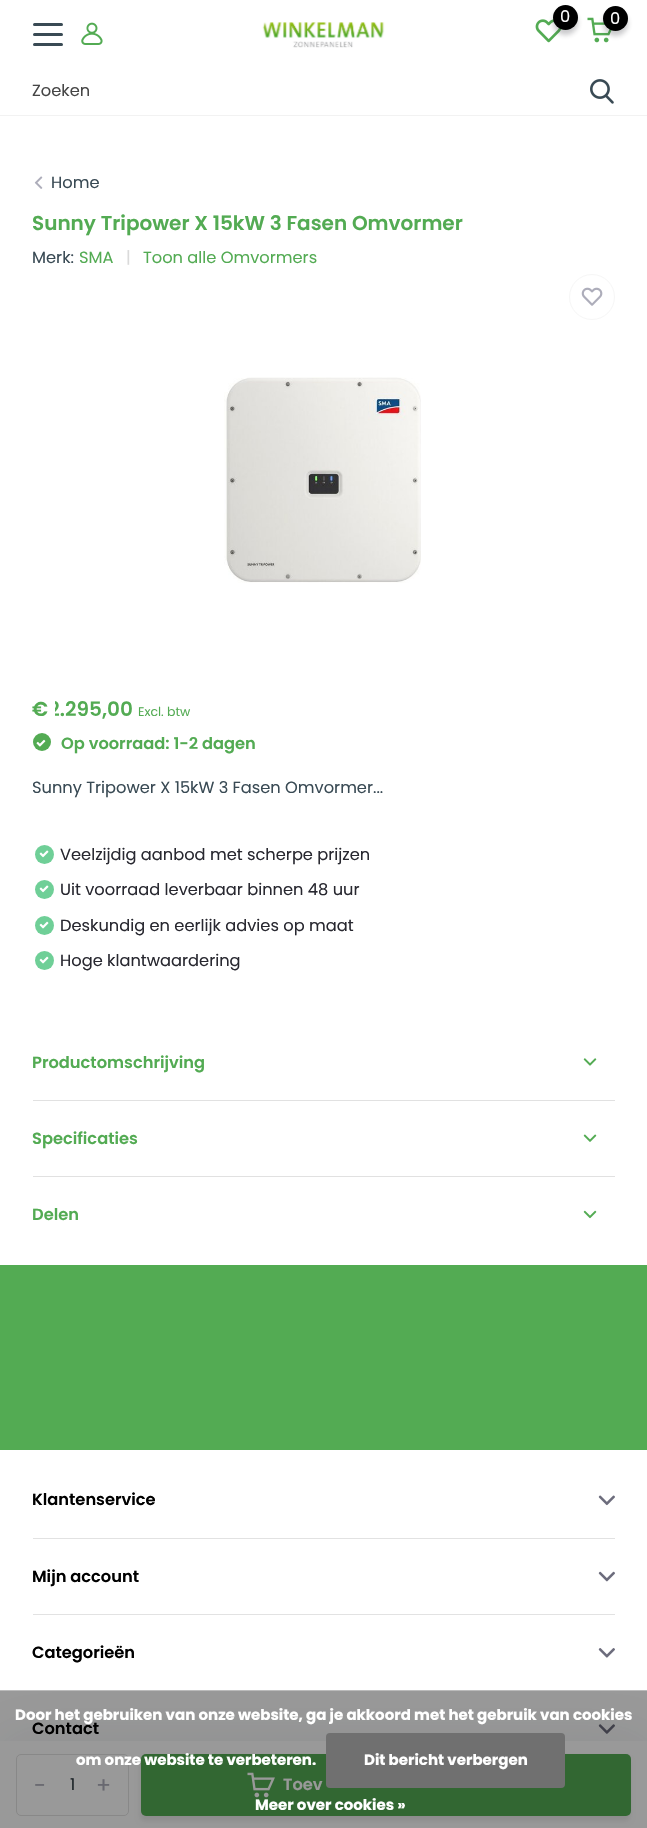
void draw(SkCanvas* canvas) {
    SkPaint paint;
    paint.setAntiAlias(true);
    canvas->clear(0xFFFFFFFF);
    canvas->drawImageRect(SkImages::DeferredFromEncodedData(SkData::MakeFromFileName("img1.png")), SkRect::MakeXYWH(535, 19, 27, 24), SkSamplingOptions());
    paint.setColor(0x40282830);
    paint.setMaskFilter(SkMaskFilter::MakeBlur(kNormal_SkBlurStyle, 2.5f));
    canvas->drawRoundRect(SkRect::MakeXYWH(553, 10, 25, 25), 12.5f, 12.5f, paint);
    paint.setMaskFilter(nullptr);
    paint.setColor(0xFF000000);
    canvas->drawCircle(565.5f, 17.5f, 12.5f, paint);
    SkFont font1(fontMgr->matchFamilyStyle("Poppins", SkFontStyle::Normal()), 16.25f);
    font1.setSubpixel(true);
    paint.setColor(0xFFFFFFFF);
    canvas->drawString("0", 560, 22, font1, paint);
    canvas->drawImageRect(SkImages::DeferredFromEncodedData(SkData::MakeFromFileName("img2.png")), SkRect::MakeXYWH(587, 17, 25, 26), SkSamplingOptions());
    paint.setColor(0x40282830);
    paint.setMaskFilter(SkMaskFilter::MakeBlur(kNormal_SkBlurStyle, 2.5f));
    canvas->drawRoundRect(SkRect::MakeXYWH(603, 11, 25, 25), 12.5f, 12.5f, paint);
    paint.setMaskFilter(nullptr);
    paint.setColor(0xFF000000);
    canvas->drawCircle(615.5f, 18.5f, 12.5f, paint);
    paint.setColor(0xFFFFFFFF);
    canvas->drawString("0", 610, 24, font1, paint);
    paint.setColor(0xFF394A54);
    canvas->drawRoundRect(SkRect::MakeXYWH(33, 23, 30, 3), 1.5f, 1.5f, paint);
    canvas->drawRoundRect(SkRect::MakeXYWH(33, 33, 30, 3), 1.5f, 1.5f, paint);
    canvas->drawRoundRect(SkRect::MakeXYWH(33, 43, 30, 3), 1.5f, 1.5f, paint);
    canvas->drawImageRect(SkImages::DeferredFromEncodedData(SkData::MakeFromFileName("img3.png")), SkRect::MakeXYWH(81, 22, 22, 23), SkSamplingOptions());
    canvas->drawImageRect(SkImages::DeferredFromEncodedData(SkData::MakeFromFileName("img4.png")), SkRect::MakeXYWH(262, 22, 123, 26), SkSamplingOptions());
    paint.setColor(0xFFF2F2F2);
    canvas->drawRect(SkRect::MakeXYWH(0, 115, 647, 1), paint);
    paint.setColor(0xFF464646);
    canvas->drawString("Zoeken", 32, 96, font1, paint);
    canvas->drawImageRect(SkImages::DeferredFromEncodedData(SkData::MakeFromFileName("img5.png")), SkRect::MakeXYWH(590, 79, 24, 25), SkSamplingOptions());
    canvas->drawImageRect(SkImages::DeferredFromEncodedData(SkData::MakeFromFileName("img6.png")), SkRect::MakeXYWH(34, 176, 9, 13), SkSamplingOptions());
    paint.setColor(0xFF394A54);
    canvas->drawString("Home", 51, 188, font1, paint);
    SkFont font2(fontMgr->matchFamilyStyle("Poppins", SkFontStyle(600, SkFontStyle::kNormal_Width, SkFontStyle::kUpright_Slant)), 20);
    font2.setSubpixel(true);
    paint.setColor(0xFF53AB53);
    canvas->drawString("Sunny Tripower X 15kW 3 Fasen Omvormer", 32, 230, font2, paint);
    paint.setColor(0xFF394A54);
    canvas->drawString("Merk:", 32, 263, font1, paint);
    paint.setColor(0xFF53AB53);
    canvas->drawString("SMA", 79, 263, font1, paint);
    paint.setColor(0xFFDADADA);
    canvas->drawString("|", 126, 263, font1, paint);
    paint.setColor(0xFF53AB53);
    canvas->drawString("Toon alle Omvormers", 143, 263, font1, paint);
    paint.setStyle(SkPaint::kStroke_Style);
    paint.setStrokeWidth(1);
    paint.setColor(0xFFF6F6F6);
    canvas->drawCircle(592, 297, 22.5f, paint);
    canvas->drawImageRect(SkImages::DeferredFromEncodedData(SkData::MakeFromFileName("img7.png")), SkRect::MakeXYWH(581, 287, 22, 19), SkSamplingOptions());
    canvas->drawImageRect(SkImages::DeferredFromEncodedData(SkData::MakeFromFileName("img8.png")), SkRect::MakeXYWH(224, 377, 197, 206), SkSamplingOptions());
    paint.setStyle(SkPaint::kFill_Style);
    paint.setColor(0xFF53AB53);
    canvas->drawString("€", 32, 716, font2, paint);
    SkFont font3(fontMgr->matchFamilyStyle("Poppins", SkFontStyle::Normal()), 12.5f);
    font3.setSubpixel(true);
    canvas->drawString("Excl. btw", 138, 716, font3, paint);
    canvas->drawCircle(42, 742, 9, paint);
    canvas->drawImageRect(SkImages::DeferredFromEncodedData(SkData::MakeFromFileName("img9.png")), SkRect::MakeXYWH(36, 739, 10, 8), SkSamplingOptions());
    SkFont font4(fontMgr->matchFamilyStyle("Poppins", SkFontStyle(600, SkFontStyle::kNormal_Width, SkFontStyle::kUpright_Slant)), 16.25f);
    font4.setSubpixel(true);
    canvas->drawString("Op voorraad: 1-2 dagen", 61, 749, font4, paint);
    paint.setColor(0xFF394A54);
    canvas->drawString("Sunny Tripower X 15kW 3 Fasen Omvormer...", 32, 793, font1, paint);
    paint.setColor(0xFF6FCF97);
    canvas->drawCircle(44.5f, 854.5f, 9.5f, paint);
    canvas->drawImageRect(SkImages::DeferredFromEncodedData(SkData::MakeFromFileName("img10.png")), SkRect::MakeXYWH(39, 850, 10, 8), SkSamplingOptions());
    paint.setColor(0xFF282830);
    canvas->drawString("Veelzijdig aanbod met scherpe prijzen", 60, 860, font1, paint);
    paint.setColor(0xFF6FCF97);
    canvas->drawCircle(44.5f, 889.5f, 9.5f, paint);
    canvas->drawImageRect(SkImages::DeferredFromEncodedData(SkData::MakeFromFileName("img10.png")), SkRect::MakeXYWH(39, 885, 10, 8), SkSamplingOptions());
    paint.setColor(0xFF282830);
    canvas->drawString("Uit voorraad leverbaar binnen 48 uur", 60, 895, font1, paint);
    paint.setColor(0xFF6FCF97);
    canvas->drawCircle(44.5f, 925.5f, 9.5f, paint);
    canvas->drawImageRect(SkImages::DeferredFromEncodedData(SkData::MakeFromFileName("img11.png")), SkRect::MakeXYWH(39, 921, 10, 8), SkSamplingOptions());
    paint.setColor(0xFF282830);
    canvas->drawString("Deskundig en eerlijk advies op maat", 60, 931, font1, paint);
    paint.setColor(0xFF6FCF97);
    canvas->drawCircle(44.5f, 960.5f, 9.5f, paint);
    canvas->drawImageRect(SkImages::DeferredFromEncodedData(SkData::MakeFromFileName("img11.png")), SkRect::MakeXYWH(39, 956, 10, 8), SkSamplingOptions());
    paint.setColor(0xFF282830);
    canvas->drawString("Hoge klantwaardering", 60, 966, font1, paint);
    canvas->drawImageRect(SkImages::DeferredFromEncodedData(SkData::MakeFromFileName("img19.png")), SkRect::MakeXYWH(598, 1648, 17, 10), SkSamplingOptions());
    canvas->drawImageRect(SkImages::DeferredFromEncodedData(SkData::MakeFromFileName("img20.png")), SkRect::MakeXYWH(598, 1724, 17, 10), SkSamplingOptions());
    paint.setColor(0x1A263F4D);
    paint.setMaskFilter(SkMaskFilter::MakeBlur(kNormal_SkBlurStyle, 31));
    canvas->drawRect(SkRect::MakeXYWH(3, 1744, 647, 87), paint);
    paint.setMaskFilter(nullptr);
    paint.setColor(0xFFFFFFFF);
    canvas->drawRect(SkRect::MakeXYWH(0, 1741, 647, 87), paint);
    paint.setStyle(SkPaint::kStroke_Style);
    paint.setColor(0xFFE2E2E2);
    canvas->drawRoundRect(SkRect::MakeXYWH(16.5f, 1754.5f, 112, 61), 4.5f, 4.5f, paint);
    paint.setStyle(SkPaint::kFill_Style);
    paint.setColor(0xFFFFFFFF);
    canvas->drawRoundRect(SkRect::MakeXYWH(18, 1755, 110, 60), 5, 5, paint);
    paint.setColor(0xFF303C43);
    canvas->drawString("1", 70, 1790, font1, paint);
    SkFont font5(fontMgr->matchFamilyStyle("Poppins", SkFontStyle::Normal()), 22);
    font5.setSubpixel(true);
    paint.setColor(0xFFADADBA);
    canvas->drawString("-", 34, 1793, font5, paint);
    canvas->drawString("+", 96, 1793, font5, paint);
    paint.setColor(0x14000000);
    paint.setMaskFilter(SkMaskFilter::MakeBlur(kNormal_SkBlurStyle, 2.5f));
    canvas->drawRoundRect(SkRect::MakeXYWH(140, 1759, 490, 62), 5, 5, paint);
    paint.setMaskFilter(nullptr);
    paint.setColor(0xFF53AB53);
    canvas->drawRoundRect(SkRect::MakeXYWH(141, 1754, 490, 62), 5, 5, paint);
    canvas->drawImageRect(SkImages::DeferredFromEncodedData(SkData::MakeFromFileName("img12.png")), SkRect::MakeXYWH(247, 1772, 28, 26), SkSamplingOptions());
    paint.setColor(0xFFFFFFFF);
    canvas->drawString("Toev", 283, 1790, font4, paint);
    canvas->drawImageRect(SkImages::DeferredFromEncodedData(SkData::MakeFromFileName("img13.png")), SkRect::MakeXYWH(55, 701, 77, 18), SkSamplingOptions());
    paint.setColor(0xFFE1E1E1);
    canvas->drawRect(SkRect::MakeXYWH(33, 1100, 582, 1), paint);
    paint.setColor(0xFF53AB53);
    canvas->drawString("Productomschrijving", 32, 1068, font4, paint);
    canvas->drawImageRect(SkImages::DeferredFromEncodedData(SkData::MakeFromFileName("img14.png")), SkRect::MakeXYWH(583, 1058, 14, 8), SkSamplingOptions());
    paint.setColor(0xFFE1E1E1);
    canvas->drawRect(SkRect::MakeXYWH(33, 1176, 582, 1), paint);
    paint.setColor(0xFF53AB53);
    canvas->drawString("Specificaties", 32, 1144, font4, paint);
    canvas->drawImageRect(SkImages::DeferredFromEncodedData(SkData::MakeFromFileName("img15.png")), SkRect::MakeXYWH(583, 1134, 14, 8), SkSamplingOptions());
    canvas->drawString("Delen", 32, 1220, font4, paint);
    canvas->drawImageRect(SkImages::DeferredFromEncodedData(SkData::MakeFromFileName("img16.png")), SkRect::MakeXYWH(583, 1210, 14, 9), SkSamplingOptions());
    canvas->drawRect(SkRect::MakeXYWH(0, 1265, 647, 185), paint);
    paint.setColor(0xFFE2E2E2);
    canvas->drawRect(SkRect::MakeXYWH(33, 1538, 582, 1), paint);
    paint.setColor(0xFF000000);
    canvas->drawString("Klantenservice", 32, 1505, font4, paint);
    canvas->drawImageRect(SkImages::DeferredFromEncodedData(SkData::MakeFromFileName("img17.png")), SkRect::MakeXYWH(598, 1495, 17, 11), SkSamplingOptions());
    paint.setColor(0xFFE2E2E2);
    canvas->drawRect(SkRect::MakeXYWH(33, 1614, 582, 1), paint);
    paint.setColor(0xFF000000);
    canvas->drawString("Mijn account", 32, 1582, font4, paint);
    canvas->drawImageRect(SkImages::DeferredFromEncodedData(SkData::MakeFromFileName("img18.png")), SkRect::MakeXYWH(598, 1571, 17, 11), SkSamplingOptions());
    canvas->drawString("Categorieën", 32, 1658, font4, paint);
    canvas->drawString("Contact", 32, 1734, font4, paint);
    paint.setColor(0x66000000);
    canvas->drawRect(SkRect::MakeXYWH(0, 1691, 647, 137), paint);
    paint.setColor(0xFFBBBBBB);
    canvas->drawRect(SkRect::MakeXYWH(0, 1690, 647, 1), paint);
    SkFont font6(fontMgr->matchFamilyStyle("Poppins", SkFontStyle::Bold()), 15);
    font6.setSubpixel(true);
    paint.setColor(0xFFFFFFFF);
    canvas->drawString("Door het gebruiken van onze website, ga je akkoord met het gebruik van cookies", 15, 1720, font6, paint);
    canvas->drawString("om onze website te verbeteren.", 76, 1765, font6, paint);
    paint.setColor(0xFF707070);
    canvas->drawRoundRect(SkRect::MakeXYWH(326, 1733, 239, 55), 4, 4, paint);
    paint.setColor(0xFFFFFFFF);
    canvas->drawString("Dit bericht verbergen", 364, 1765, font6, paint);
    canvas->drawString("Meer over cookies »", 255, 1810, font6, paint);
}
